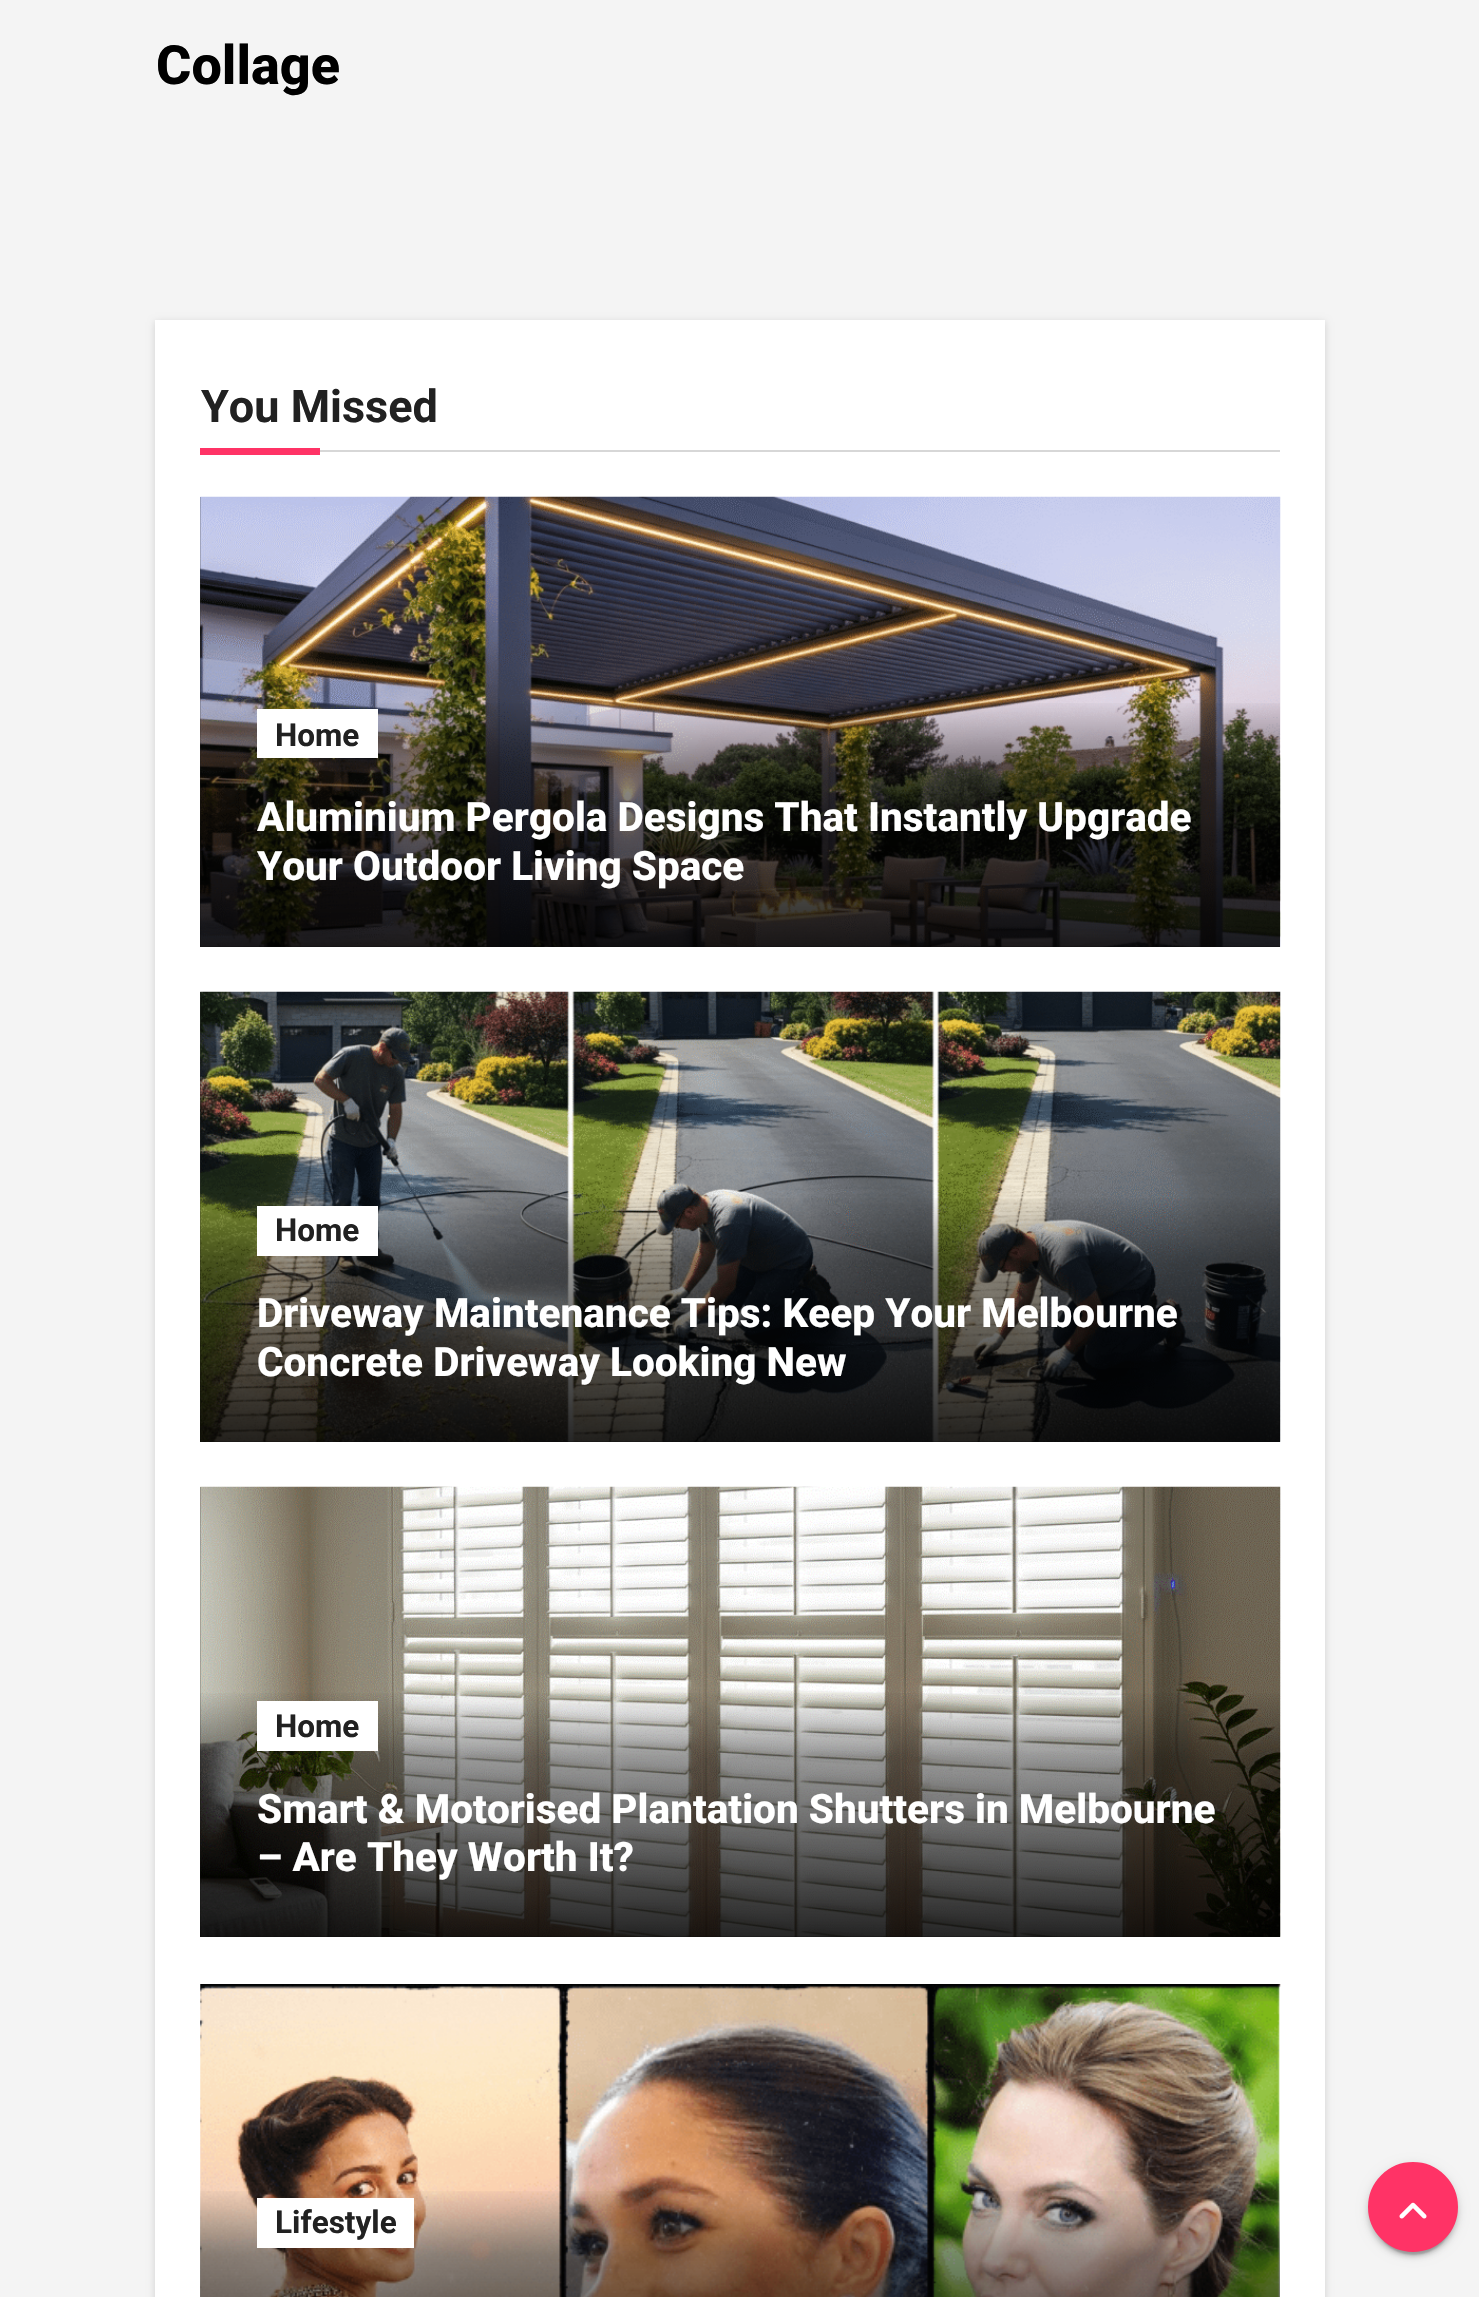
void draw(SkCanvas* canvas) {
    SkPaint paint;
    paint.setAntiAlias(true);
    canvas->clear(0xFFF4F4F4);
    SkFont font1(fontMgr->matchFamilyStyle("Roboto", SkFontStyle(800, SkFontStyle::kNormal_Width, SkFontStyle::kUpright_Slant)), 54);
    font1.setSubpixel(true);
    paint.setColor(0xFF000000);
    canvas->drawString("Collage", 156, 84, font1, paint);
    paint.setColor(0x26000000);
    paint.setMaskFilter(SkMaskFilter::MakeBlur(kNormal_SkBlurStyle, 3.5f));
    canvas->drawRect(SkRect::MakeXYWH(155, 322, 1170, 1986), paint);
    paint.setMaskFilter(nullptr);
    paint.setColor(0xFFFFFFFF);
    canvas->drawRect(SkRect::MakeXYWH(155, 320, 1170, 1977), paint);
    paint.setColor(0xFFD7D7D7);
    canvas->drawRect(SkRect::MakeXYWH(320, 450, 960, 2), paint);
    SkFont font2(fontMgr->matchFamilyStyle("Roboto", SkFontStyle::Bold()), 45);
    font2.setSubpixel(true);
    paint.setColor(0xFF212121);
    canvas->drawString("You Missed", 201, 422, font2, paint);
    paint.setColor(0xFFFF3366);
    canvas->drawRect(SkRect::MakeXYWH(200, 448, 120, 7), paint);
    paint.setColor(0xFF333333);
    canvas->drawRect(SkRect::MakeXYWH(200, 497, 1080, 450), paint);
    canvas->drawImageRect(SkImages::DeferredFromEncodedData(SkData::MakeFromFileName("img1.png")), SkRect::MakeXYWH(200, 496, 1081, 451), SkSamplingOptions());
    {
        const SkColor colors[] = {0x00000000, 0x00000000, 0x66000000, 0xD9000000};
        const float stops[] = {0, 0.45f, 0.6f, 1};
        const SkPoint ends[] = {{740, 497}, {740, 947}};
        paint.setShader(SkGradientShader::MakeLinear(ends, colors, stops, 4, SkTileMode::kClamp));
        paint.setAlpha(255);
    }
    canvas->drawRect(SkRect::MakeXYWH(200, 703, 1080, 244), paint);
    paint.setShader(nullptr);
    paint.setColor(0xFFFFFFFF);
    canvas->drawRect(SkRect::MakeXYWH(257, 709, 121, 49), paint);
    SkFont font3(fontMgr->matchFamilyStyle("Roboto", SkFontStyle::Bold()), 31.5f);
    font3.setSubpixel(true);
    paint.setColor(0xFF212121);
    canvas->drawString("Home", 275, 746, font3, paint);
    SkFont font4(fontMgr->matchFamilyStyle("Roboto", SkFontStyle(800, SkFontStyle::kNormal_Width, SkFontStyle::kUpright_Slant)), 40.5f);
    font4.setSubpixel(true);
    paint.setColor(0xFFFFFFFF);
    canvas->drawString("Aluminium Pergola Designs That Instantly Upgrade", 257, 831, font4, paint);
    canvas->drawString("Your Outdoor Living Space", 257, 880, font4, paint);
    paint.setColor(0xFF333333);
    canvas->drawRect(SkRect::MakeXYWH(200, 992, 1080, 450), paint);
    canvas->drawImageRect(SkImages::DeferredFromEncodedData(SkData::MakeFromFileName("img2.png")), SkRect::MakeXYWH(200, 991, 1081, 451), SkSamplingOptions());
    {
        const SkColor colors[] = {0x00000000, 0x00000000, 0x66000000, 0xD9000000};
        const float stops[] = {0, 0.45f, 0.6f, 1};
        const SkPoint ends[] = {{740, 992}, {740, 1442}};
        paint.setShader(SkGradientShader::MakeLinear(ends, colors, stops, 4, SkTileMode::kClamp));
        paint.setAlpha(255);
    }
    canvas->drawRect(SkRect::MakeXYWH(200, 1198, 1080, 244), paint);
    paint.setShader(nullptr);
    paint.setColor(0xFFFFFFFF);
    canvas->drawRect(SkRect::MakeXYWH(257, 1206, 121, 50), paint);
    paint.setColor(0xFF212121);
    canvas->drawString("Home", 275, 1241, font3, paint);
    paint.setColor(0xFFFFFFFF);
    canvas->drawString("Driveway Maintenance Tips: Keep Your Melbourne", 257, 1327, font4, paint);
    canvas->drawString("Concrete Driveway Looking New", 257, 1376, font4, paint);
    paint.setColor(0xFF333333);
    canvas->drawRect(SkRect::MakeXYWH(200, 1487, 1080, 450), paint);
    canvas->drawImageRect(SkImages::DeferredFromEncodedData(SkData::MakeFromFileName("img3.png")), SkRect::MakeXYWH(200, 1486, 1081, 451), SkSamplingOptions());
    {
        const SkColor colors[] = {0x00000000, 0x00000000, 0x66000000, 0xD9000000};
        const float stops[] = {0, 0.45f, 0.6f, 1};
        const SkPoint ends[] = {{740, 1487}, {740, 1937}};
        paint.setShader(SkGradientShader::MakeLinear(ends, colors, stops, 4, SkTileMode::kClamp));
        paint.setAlpha(255);
    }
    canvas->drawRect(SkRect::MakeXYWH(200, 1693, 1080, 244), paint);
    paint.setShader(nullptr);
    paint.setColor(0xFFFFFFFF);
    canvas->drawRect(SkRect::MakeXYWH(257, 1701, 121, 50), paint);
    paint.setColor(0xFF212121);
    canvas->drawString("Home", 275, 1737, font3, paint);
    paint.setColor(0xFFFFFFFF);
    canvas->drawString("Smart & Motorised Plantation Shutters in Melbourne", 257, 1823, font4, paint);
    canvas->drawString("– Are They Worth It?", 257, 1871, font4, paint);
    canvas->drawImageRect(SkImages::DeferredFromEncodedData(SkData::MakeFromFileName("img4.png")), SkRect::MakeXYWH(200, 1984, 1081, 313), SkSamplingOptions());
    {
        const SkColor colors[] = {0x00000000, 0x00000000, 0x66000000, 0xD9000000};
        const float stops[] = {0, 0.45f, 0.6f, 1};
        const SkPoint ends[] = {{740, 1985}, {740, 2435}};
        paint.setShader(SkGradientShader::MakeLinear(ends, colors, stops, 4, SkTileMode::kClamp));
        paint.setAlpha(255);
    }
    canvas->drawRect(SkRect::MakeXYWH(200, 2191, 1080, 106), paint);
    paint.setShader(nullptr);
    paint.setColor(0xFFFFFFFF);
    canvas->drawRect(SkRect::MakeXYWH(257, 2198, 157, 50), paint);
    paint.setColor(0xFF212121);
    canvas->drawString("Lifestyle", 275, 2233, font3, paint);
    paint.setColor(0x1F000000);
    paint.setMaskFilter(SkMaskFilter::MakeBlur(kNormal_SkBlurStyle, 5.5f));
    canvas->drawRoundRect(SkRect::MakeXYWH(1368, 2165, 90, 90), 45, 45, paint);
    paint.setMaskFilter(nullptr);
    paint.setColor(0x33000000);
    paint.setMaskFilter(SkMaskFilter::MakeBlur(kNormal_SkBlurStyle, 1));
    canvas->drawRoundRect(SkRect::MakeXYWH(1373, 2174, 81, 81), 40.5f, 40.5f, paint);
    paint.setMaskFilter(nullptr);
    paint.setColor(0x24000000);
    paint.setMaskFilter(SkMaskFilter::MakeBlur(kNormal_SkBlurStyle, 2));
    canvas->drawRoundRect(SkRect::MakeXYWH(1368, 2167, 90, 90), 45, 45, paint);
    paint.setMaskFilter(nullptr);
    paint.setColor(0xFFFF3366);
    canvas->drawCircle(1413, 2207, 42.5f, paint);
    paint.setStyle(SkPaint::kStroke_Style);
    paint.setStrokeWidth(5);
    canvas->drawCircle(1413, 2207, 42.5f, paint);
    canvas->drawImageRect(SkImages::DeferredFromEncodedData(SkData::MakeFromFileName("img5.png")), SkRect::MakeXYWH(1399, 2202, 28, 17), SkSamplingOptions());
}
